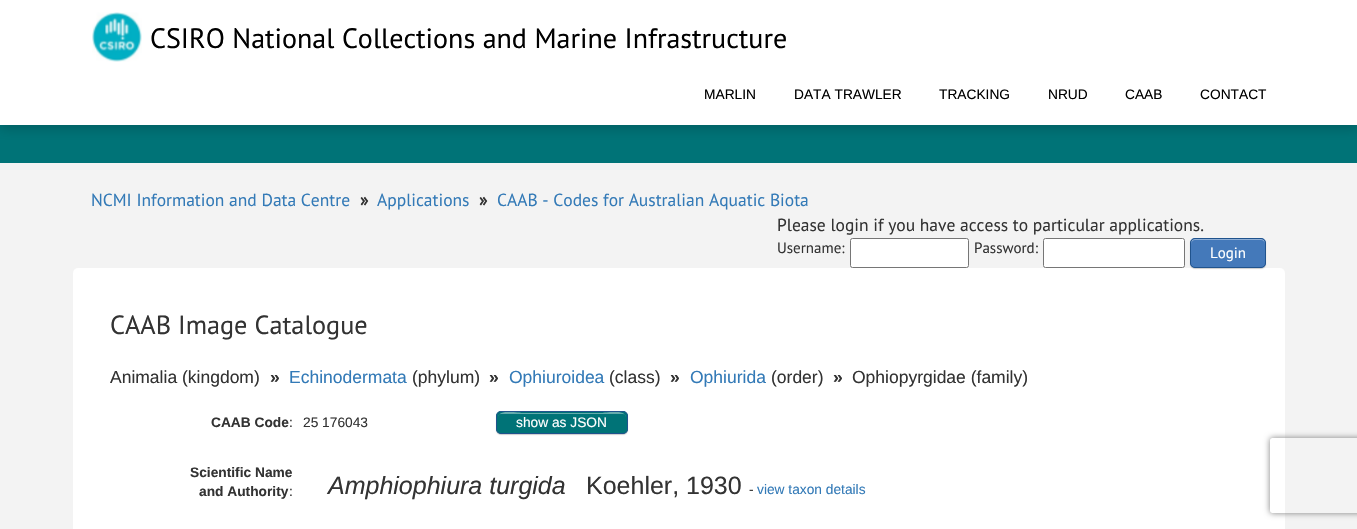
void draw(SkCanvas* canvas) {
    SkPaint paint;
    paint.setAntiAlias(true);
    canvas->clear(0xFFF3F3F3);
    paint.setColor(0xFF007377);
    canvas->drawRect(SkRect::MakeXYWH(0, 125, 1357, 38), paint);
    paint.setColor(0x33000000);
    paint.setMaskFilter(SkMaskFilter::MakeBlur(kNormal_SkBlurStyle, 6));
    canvas->drawRect(SkRect::MakeXYWH(0, 3, 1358, 125), paint);
    paint.setMaskFilter(nullptr);
    paint.setColor(0xFFFFFFFF);
    canvas->drawRect(SkRect::MakeXYWH(0, 0, 1357, 125), paint);
    canvas->drawImageRect(SkImages::DeferredFromEncodedData(SkData::MakeFromFileName("img1.png")), SkRect::MakeXYWH(92, 12, 50, 50), SkSamplingOptions());
    SkFont font1(fontMgr->matchFamilyStyle("PT Sans", SkFontStyle::Normal()), 28);
    font1.setSubpixel(true);
    paint.setColor(0xFF000000);
    canvas->drawString("CSIRO National Collections and Marine Infrastructure", 150, 48, font1, paint);
    SkFont font2(fontMgr->matchFamilyStyle("Liberation Sans", SkFontStyle::Normal()), 13.75f);
    font2.setSubpixel(true);
    canvas->drawString("MARLIN", 704, 99, font2, paint);
    canvas->drawString("DATA TRAWLER", 794, 99, font2, paint);
    canvas->drawString("TRACKING", 939, 99, font2, paint);
    canvas->drawString("NRUD", 1048, 99, font2, paint);
    canvas->drawString("CAAB", 1125, 99, font2, paint);
    canvas->drawString("CONTACT", 1200, 99, font2, paint);
    SkFont font3(fontMgr->matchFamilyStyle("PT Sans", SkFontStyle::Normal()), 17.5f);
    font3.setSubpixel(true);
    paint.setColor(0xFF337AB7);
    canvas->drawString("NCMI Information and Data Centre", 91, 206, font3, paint);
    SkFont font4(fontMgr->matchFamilyStyle("PT Sans", SkFontStyle::Bold()), 17.5f);
    font4.setSubpixel(true);
    paint.setColor(0xFF333333);
    canvas->drawString("»", 360, 206, font4, paint);
    paint.setColor(0xFF337AB7);
    canvas->drawString("Applications", 377, 206, font3, paint);
    paint.setColor(0xFF333333);
    canvas->drawString("»", 479, 206, font4, paint);
    paint.setColor(0xFF337AB7);
    canvas->drawString("CAAB - Codes for Australian Aquatic Biota", 497, 206, font3, paint);
    paint.setColor(0xFF333333);
    canvas->drawString("Please login if you have access to particular applications.", 777, 231, font3, paint);
    SkFont font5(fontMgr->matchFamilyStyle("PT Sans", SkFontStyle::Normal()), 15);
    font5.setSubpixel(true);
    canvas->drawString("Username:", 777, 253, font5, paint);
    paint.setColor(0xFFFFFFFF);
    canvas->drawRoundRect(SkRect::MakeXYWH(850.5f, 238.5f, 118, 29), 2, 2, paint);
    paint.setStyle(SkPaint::kStroke_Style);
    paint.setStrokeWidth(1);
    paint.setColor(0xFF767676);
    canvas->drawRoundRect(SkRect::MakeXYWH(850.5f, 238.5f, 118, 29), 2, 2, paint);
    paint.setStyle(SkPaint::kFill_Style);
    paint.setColor(0xFF333333);
    canvas->drawString("Password:", 974, 253, font5, paint);
    paint.setColor(0xFFFFFFFF);
    canvas->drawRoundRect(SkRect::MakeXYWH(1043.5f, 238.5f, 141, 29), 2, 2, paint);
    paint.setStyle(SkPaint::kStroke_Style);
    paint.setColor(0xFF767676);
    canvas->drawRoundRect(SkRect::MakeXYWH(1043.5f, 238.5f, 141, 29), 2, 2, paint);
    paint.setStyle(SkPaint::kFill_Style);
    paint.setColor(0xFFFFFFFF);
    canvas->drawRoundRect(SkRect::MakeXYWH(73, 268, 1212, 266), 5, 5, paint);
    paint.setColor(0x33000000);
    paint.setMaskFilter(SkMaskFilter::MakeBlur(kNormal_SkBlurStyle, 0.5f));
    canvas->drawRoundRect(SkRect::MakeXYWH(1190, 239, 76, 30), 5, 5, paint);
    paint.setMaskFilter(nullptr);
    paint.setColor(0xFF4479BA);
    canvas->drawRoundRect(SkRect::MakeXYWH(1190, 238, 76, 30), 5, 5, paint);
    paint.setColor(0xFF8FAFD6);
    canvas->drawPath(SkPathBuilder().moveTo(1195, 240).lineTo(1261, 240).cubicTo(1263, 240, 1265, 242, 1265, 244).cubicTo(1265, 236, 1255, 239, 1250, 239).lineTo(1206, 239).cubicTo(1201, 239, 1191, 236, 1191, 244).cubicTo(1191, 242, 1193, 240, 1195, 240).close().detach(), paint);
    paint.setStyle(SkPaint::kStroke_Style);
    paint.setColor(0xFF20538D);
    canvas->drawRoundRect(SkRect::MakeXYWH(1190.5f, 238.5f, 75, 29), 4.5f, 4.5f, paint);
    paint.setStyle(SkPaint::kFill_Style);
    paint.setColor(0xFFFFFFFF);
    canvas->drawString("Login", 1210, 258, font5, paint);
    canvas->save();
    canvas->clipPath(SkPathBuilder(SkPathFillType::kEvenOdd).moveTo(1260, 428).lineTo(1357, 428).lineTo(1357, 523).lineTo(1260, 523).close().moveTo(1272.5f, 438).lineTo(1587.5f, 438).cubicTo(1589, 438, 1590, 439, 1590, 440.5f).lineTo(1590, 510.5f).cubicTo(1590, 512, 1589, 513, 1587.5f, 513).lineTo(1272.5f, 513).cubicTo(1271, 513, 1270, 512, 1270, 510.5f).lineTo(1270, 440.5f).cubicTo(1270, 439, 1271, 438, 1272.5f, 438).close().detach(), true);
    paint.setColor(0xFF808080);
    paint.setMaskFilter(SkMaskFilter::MakeBlur(kNormal_SkBlurStyle, 3));
    canvas->drawRoundRect(SkRect::MakeXYWH(1270, 438, 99, 75), 2.5f, 2.5f, paint);
    paint.setMaskFilter(nullptr);
    canvas->restore();
    SkFont font6(fontMgr->matchFamilyStyle("PT Sans", SkFontStyle::Normal()), 26.25f);
    font6.setSubpixel(true);
    paint.setColor(0xFF333333);
    canvas->drawString("CAAB Image Catalogue", 110, 334, font6, paint);
    SkFont font7(fontMgr->matchFamilyStyle("Liberation Sans", SkFontStyle::Normal()), 17.5f);
    font7.setSubpixel(true);
    canvas->drawString("Animalia (kingdom)", 110, 383, font7, paint);
    SkFont font8(fontMgr->matchFamilyStyle("Liberation Sans", SkFontStyle::Bold()), 17.5f);
    font8.setSubpixel(true);
    canvas->drawString("»", 270, 383, font8, paint);
    paint.setColor(0xFF337AB7);
    canvas->drawString("Echinodermata", 289, 383, font7, paint);
    paint.setColor(0xFF333333);
    canvas->drawString("(phylum)", 412, 383, font7, paint);
    canvas->drawString("»", 489, 383, font8, paint);
    paint.setColor(0xFF337AB7);
    canvas->drawString("Ophiuroidea", 509, 383, font7, paint);
    paint.setColor(0xFF333333);
    canvas->drawString("(class)", 609, 383, font7, paint);
    canvas->drawString("»", 670, 383, font8, paint);
    paint.setColor(0xFF337AB7);
    canvas->drawString("Ophiurida", 690, 383, font7, paint);
    paint.setColor(0xFF333333);
    canvas->drawString("(order)", 771, 383, font7, paint);
    canvas->drawString("»", 833, 383, font8, paint);
    canvas->drawString("Ophiopyrgidae (family)", 852, 383, font7, paint);
    SkFont font9(fontMgr->matchFamilyStyle("Liberation Sans", SkFontStyle::Bold()), 13.75f);
    font9.setSubpixel(true);
    canvas->drawString("CAAB Code", 211, 427, font9, paint);
    canvas->drawString(":", 289, 427, font2, paint);
    canvas->drawString("25 176043", 303, 427, font2, paint);
    paint.setColor(0x33000000);
    paint.setMaskFilter(SkMaskFilter::MakeBlur(kNormal_SkBlurStyle, 0.5f));
    canvas->drawRoundRect(SkRect::MakeXYWH(496, 413, 132, 22), 5, 5, paint);
    paint.setMaskFilter(nullptr);
    paint.setColor(0xFF007377);
    canvas->drawRoundRect(SkRect::MakeXYWH(496, 411, 132, 23), 5, 5, paint);
    paint.setColor(0xFF66ABAD);
    canvas->drawPath(SkPathBuilder().moveTo(501, 414).lineTo(622, 414).cubicTo(625, 414, 626, 415, 626, 418).cubicTo(626, 408, 604, 413, 602, 413).lineTo(522, 413).cubicTo(520, 413, 498, 408, 498, 418).cubicTo(498, 415, 499, 414, 501, 414).close().detach(), paint);
    paint.setStyle(SkPaint::kStroke_Style);
    paint.setColor(0xFF20538D);
    canvas->drawRoundRect(SkRect::MakeXYWH(496.5f, 411.5f, 131, 22), 4.5f, 4.5f, paint);
    paint.setStyle(SkPaint::kFill_Style);
    paint.setColor(0xFFFFFFFF);
    canvas->drawString("show as JSON", 516, 427, font2, paint);
    paint.setColor(0xFF333333);
    canvas->drawString("Scientific Name", 190, 477, font9, paint);
    canvas->drawString("and Authority", 199, 496, font9, paint);
    canvas->drawString(":", 289, 496, font2, paint);
    SkFont font10(fontMgr->matchFamilyStyle("Liberation Sans", SkFontStyle::Italic()), 25);
    font10.setSubpixel(true);
    canvas->drawString("Amphiophiura turgida", 328, 494, font10, paint);
    SkFont font11(fontMgr->matchFamilyStyle("Liberation Sans", SkFontStyle::Normal()), 25);
    font11.setSubpixel(true);
    canvas->drawString("Koehler, 1930", 586, 494, font11, paint);
    canvas->drawString("-", 749, 494, font2, paint);
    paint.setColor(0xFF337AB7);
    canvas->drawString("view taxon details", 757, 494, font2, paint);
}
